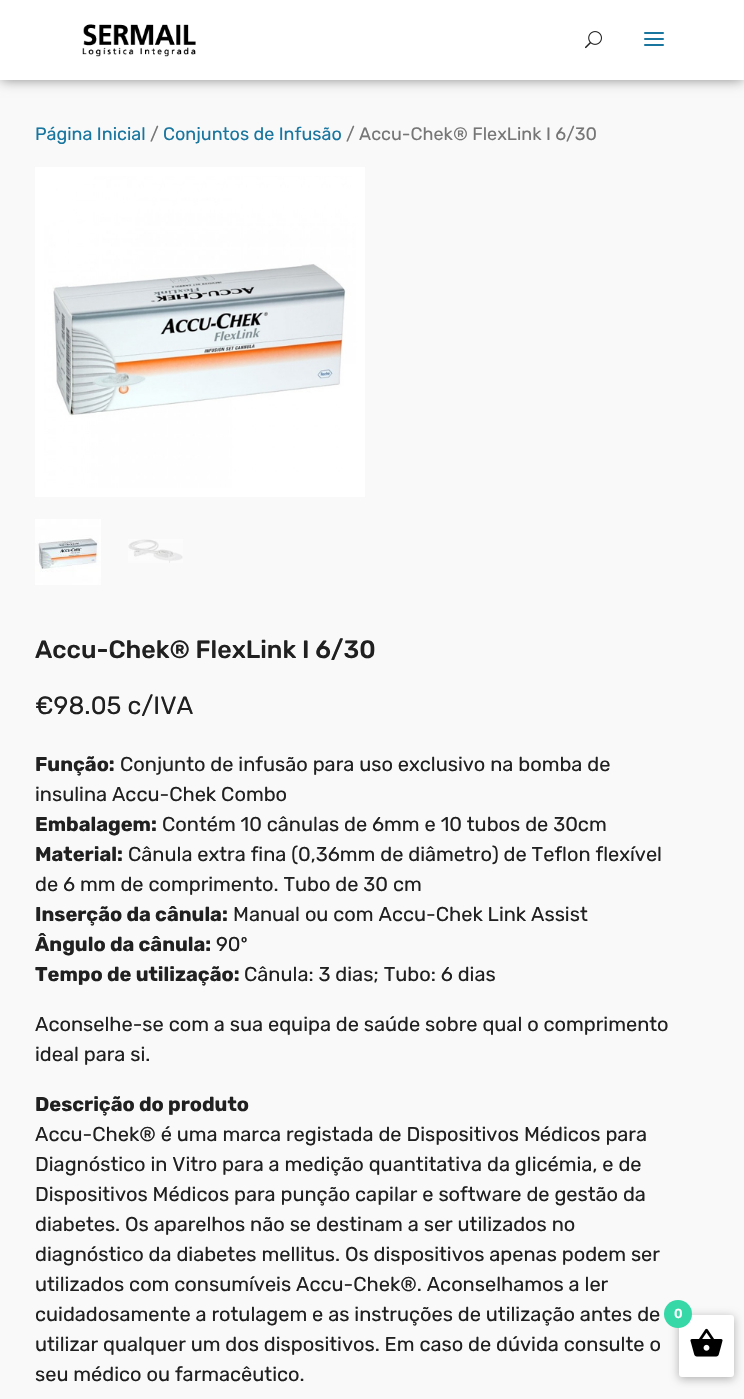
void draw(SkCanvas* canvas) {
    SkPaint paint;
    paint.setAntiAlias(true);
    canvas->clear(0xFFF9F9F9);
    paint.setColor(0xFF8A8A8A);
    paint.setMaskFilter(SkMaskFilter::MakeBlur(kNormal_SkBlurStyle, 6));
    canvas->drawRect(SkRect::MakeXYWH(1, 2, 742, 78), paint);
    paint.setMaskFilter(nullptr);
    paint.setColor(0xFFFFFFFF);
    canvas->drawRect(SkRect::MakeXYWH(0, 0, 744, 80), paint);
    canvas->drawImageRect(SkImages::DeferredFromEncodedData(SkData::MakeFromFileName("img1.png")), SkRect::MakeXYWH(82, 24, 114, 33), SkSamplingOptions());
    canvas->drawImageRect(SkImages::DeferredFromEncodedData(SkData::MakeFromFileName("img2.png")), SkRect::MakeXYWH(585, 31, 17, 18), SkSamplingOptions());
    canvas->drawImageRect(SkImages::DeferredFromEncodedData(SkData::MakeFromFileName("img3.png")), SkRect::MakeXYWH(644, 32, 20, 14), SkSamplingOptions());
    SkFont font1(fontMgr->matchFamilyStyle("Rubik", SkFontStyle::Normal()), 18);
    font1.setSubpixel(true);
    paint.setColor(0xFF19769F);
    canvas->drawString("Página Inicial", 35, 140, font1, paint);
    paint.setColor(0xFF767676);
    canvas->drawString("/", 150, 140, font1, paint);
    paint.setColor(0xFF19769F);
    canvas->drawString("Conjuntos de Infusão", 163, 140, font1, paint);
    paint.setColor(0xFF767676);
    canvas->drawString("/ Accu-Chek® FlexLink I 6/30", 346, 140, font1, paint);
    canvas->drawImageRect(SkImages::DeferredFromEncodedData(SkData::MakeFromFileName("img4.png")), SkRect::MakeXYWH(35, 167, 330, 330), SkSamplingOptions());
    canvas->drawImageRect(SkImages::DeferredFromEncodedData(SkData::MakeFromFileName("img5.png")), SkRect::MakeXYWH(35, 519, 66, 66), SkSamplingOptions());
    canvas->drawImageRect(SkImages::DeferredFromEncodedData(SkData::MakeFromFileName("img6.png")), SkRect::MakeXYWH(128, 539, 55, 24), SkSamplingOptions());
    SkFont font2(fontMgr->matchFamilyStyle("Rubik", SkFontStyle(500, SkFontStyle::kNormal_Width, SkFontStyle::kUpright_Slant)), 25);
    font2.setSubpixel(true);
    paint.setColor(0xFF202020);
    canvas->drawString("Accu-Chek® FlexLink I 6/30", 35, 658, font2, paint);
    SkFont font3(fontMgr->matchFamilyStyle("Rubik", SkFontStyle::Normal()), 25);
    font3.setSubpixel(true);
    canvas->drawString("€98.05 c/IVA", 35, 714, font3, paint);
    SkFont font4(fontMgr->matchFamilyStyle("Rubik", SkFontStyle::Bold()), 20);
    font4.setSubpixel(true);
    canvas->drawString("Função:", 35, 771, font4, paint);
    SkFont font5(fontMgr->matchFamilyStyle("Rubik", SkFontStyle::Normal()), 20);
    font5.setSubpixel(true);
    canvas->drawString("Conjunto de infusão para uso exclusivo na bomba de", 120, 771, font5, paint);
    canvas->drawString("insulina Accu-Chek Combo", 35, 801, font5, paint);
    canvas->drawString("Embalagem:", 35, 831, font4, paint);
    canvas->drawString("Contém 10 cânulas de 6mm e 10 tubos de 30cm", 162, 831, font5, paint);
    canvas->drawString("Material:", 35, 861, font4, paint);
    canvas->drawString("Cânula extra fina (0,36mm de diâmetro) de Teflon flexível", 128, 861, font5, paint);
    canvas->drawString("de 6 mm de comprimento. Tubo de 30 cm", 35, 891, font5, paint);
    canvas->drawString("Inserção da cânula:", 35, 921, font4, paint);
    canvas->drawString("Manual ou com Accu-Chek Link Assist", 233, 921, font5, paint);
    canvas->drawString("Ângulo da cânula:", 35, 951, font4, paint);
    canvas->drawString("90º", 216, 951, font5, paint);
    canvas->drawString("Tempo de utilização:", 35, 981, font4, paint);
    canvas->drawString("Cânula: 3 dias; Tubo: 6 dias", 244, 981, font5, paint);
    canvas->drawString("Aconselhe-se com a sua equipa de saúde sobre qual o comprimento", 35, 1031, font5, paint);
    canvas->drawString("ideal para si.", 35, 1061, font5, paint);
    canvas->drawString("Descrição do produto", 35, 1111, font4, paint);
    canvas->drawString("Accu-Chek® é uma marca registada de Dispositivos Médicos para", 35, 1141, font5, paint);
    canvas->drawString("Diagnóstico in Vitro para a medição quantitativa da glicémia, e de", 35, 1171, font5, paint);
    canvas->drawString("Dispositivos Médicos para punção capilar e software de gestão da", 35, 1201, font5, paint);
    canvas->drawString("diabetes. Os aparelhos não se destinam a ser utilizados no", 35, 1231, font5, paint);
    canvas->drawString("diagnóstico da diabetes mellitus. Os dispositivos apenas podem ser", 35, 1261, font5, paint);
    canvas->drawString("utilizados com consumíveis Accu-Chek®. Aconselhamos a ler", 35, 1291, font5, paint);
    canvas->drawString("cuidadosamente a rotulagem e as instruções de utilização antes de", 35, 1321, font5, paint);
    canvas->drawString("utilizar qualquer um dos dispositivos. Em caso de dúvida consulte o", 35, 1351, font5, paint);
    canvas->drawString("seu médico ou farmacêutico.", 35, 1381, font5, paint);
    paint.setColor(0x4D000000);
    paint.setMaskFilter(SkMaskFilter::MakeBlur(kNormal_SkBlurStyle, 5));
    canvas->drawRoundRect(SkRect::MakeXYWH(679, 1317, 55, 62), 3, 3, paint);
    paint.setMaskFilter(nullptr);
    paint.setColor(0xFFFFFFFF);
    canvas->drawRoundRect(SkRect::MakeXYWH(679, 1315, 55, 62), 3, 3, paint);
    paint.setColor(0xFF35D8A6);
    canvas->drawCircle(678, 1314, 14, paint);
    SkFont font6(fontMgr->matchFamilyStyle("Rubik", SkFontStyle(500, SkFontStyle::kNormal_Width, SkFontStyle::kUpright_Slant)), 13);
    font6.setSubpixel(true);
    paint.setColor(0xFFFFFFFF);
    canvas->drawString("0", 674, 1318, font6, paint);
    canvas->drawImageRect(SkImages::DeferredFromEncodedData(SkData::MakeFromFileName("img7.png")), SkRect::MakeXYWH(690, 1328, 33, 29), SkSamplingOptions());
}
